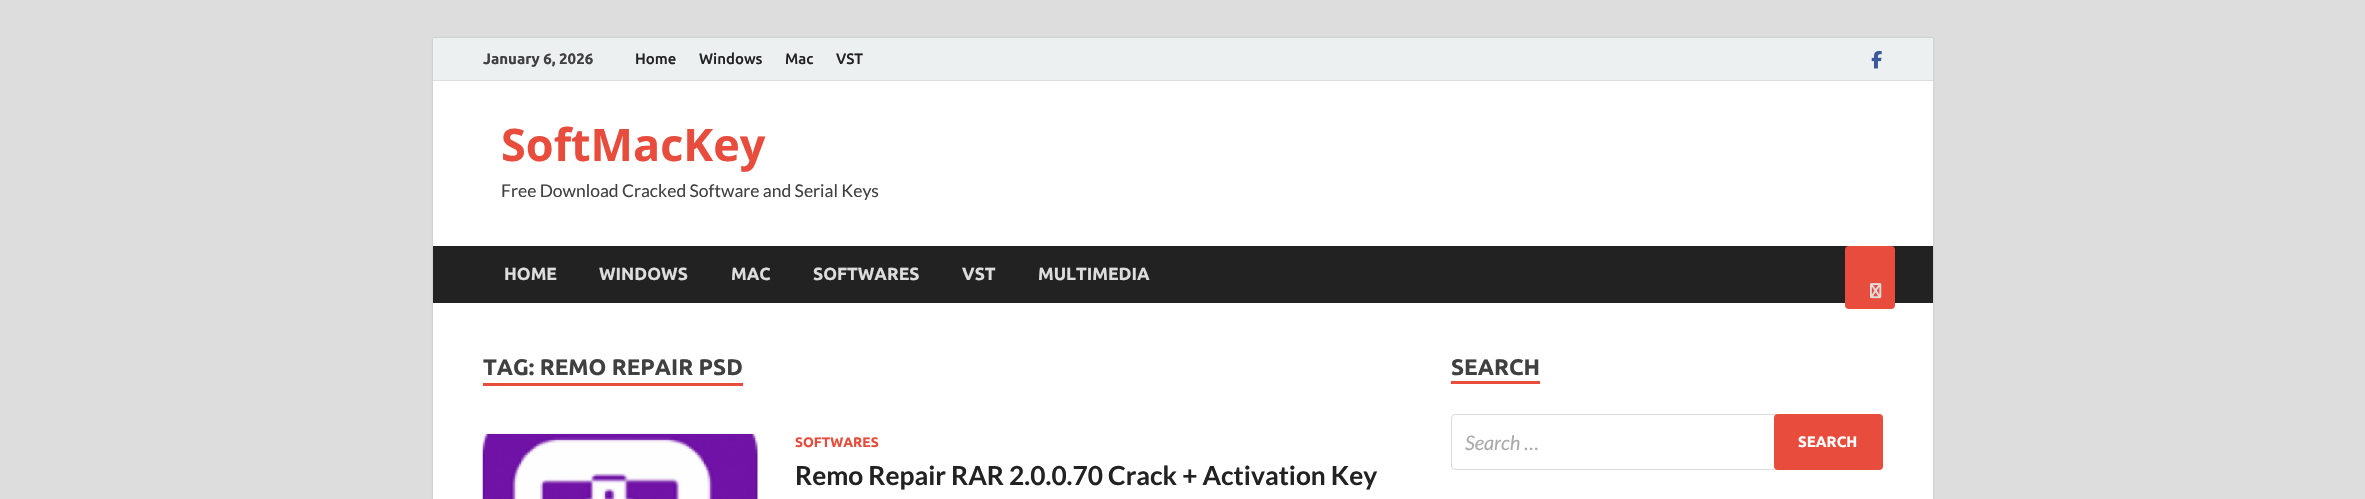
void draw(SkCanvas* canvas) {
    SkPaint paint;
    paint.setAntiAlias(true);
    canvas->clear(0xFFDDDDDD);
    paint.setColor(0xFFBBBBBB);
    paint.setMaskFilter(SkMaskFilter::MakeBlur(kNormal_SkBlurStyle, 1));
    canvas->drawRect(SkRect::MakeXYWH(433, 38, 1500, 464), paint);
    paint.setMaskFilter(nullptr);
    paint.setColor(0xFFFFFFFF);
    canvas->drawRect(SkRect::MakeXYWH(433, 81, 1500, 418), paint);
    paint.setColor(0xFFECF0F1);
    canvas->drawRect(SkRect::MakeXYWH(433, 38, 1500, 42), paint);
    paint.setColor(0xFFDDDDDD);
    canvas->drawRect(SkRect::MakeXYWH(433, 80, 1500, 1), paint);
    SkFont font1(fontMgr->matchFamilyStyle("Ubuntu", SkFontStyle::Bold()), 15);
    font1.setSubpixel(true);
    paint.setColor(0xFF404040);
    canvas->drawString("January 6, 2026", 483, 64, font1, paint);
    SkFont font2(fontMgr->matchFamilyStyle("Ubuntu", SkFontStyle(500, SkFontStyle::kNormal_Width, SkFontStyle::kUpright_Slant)), 15);
    font2.setSubpixel(true);
    paint.setColor(0xFF222222);
    canvas->drawString("Home", 635, 64, font2, paint);
    canvas->drawString("Windows", 699, 64, font2, paint);
    canvas->drawString("Mac", 785, 64, font2, paint);
    canvas->drawString("VST", 836, 64, font2, paint);
    canvas->drawImageRect(SkImages::DeferredFromEncodedData(SkData::MakeFromFileName("img1.png")), SkRect::MakeXYWH(1871, 50, 11, 19), SkSamplingOptions());
    SkFont font3(fontMgr->matchFamilyStyle("Open Sans", SkFontStyle::Bold()), 45);
    font3.setSubpixel(true);
    paint.setColor(0xFFE74C3C);
    canvas->drawString("SoftMacKey", 501, 161, font3, paint);
    SkFont font4(fontMgr->matchFamilyStyle("Lato", SkFontStyle::Normal()), 17.5f);
    font4.setSubpixel(true);
    paint.setColor(0xFF404040);
    canvas->drawString("Free Download Cracked Software and Serial Keys", 501, 197, font4, paint);
    paint.setColor(0xFF222222);
    canvas->drawRect(SkRect::MakeXYWH(433, 246, 1500, 57), paint);
    SkFont font5(fontMgr->matchFamilyStyle("Ubuntu", SkFontStyle::Bold()), 17.5f);
    font5.setSubpixel(true);
    paint.setColor(0xFFDDDDDD);
    canvas->drawString("HOME", 504, 280, font5, paint);
    canvas->drawString("WINDOWS", 599, 280, font5, paint);
    canvas->drawString("MAC", 731, 280, font5, paint);
    canvas->drawString("SOFTWARES", 813, 280, font5, paint);
    canvas->drawString("VST", 962, 280, font5, paint);
    canvas->drawString("MULTIMEDIA", 1038, 280, font5, paint);
    paint.setColor(0xFFE74C3C);
    canvas->drawRoundRect(SkRect::MakeXYWH(1845, 246, 50, 63), 4, 4, paint);
    canvas->drawImageRect(SkImages::DeferredFromEncodedData(SkData::MakeFromFileName("img2.png")), SkRect::MakeXYWH(1870, 283, 12, 16), SkSamplingOptions());
    SkFont font6(fontMgr->matchFamilyStyle("Ubuntu", SkFontStyle::Bold()), 22.5f);
    font6.setSubpixel(true);
    paint.setColor(0xFF404040);
    canvas->drawString("TAG: REMO REPAIR PSD", 483, 375, font6, paint);
    paint.setColor(0xFFE74C3C);
    canvas->drawRect(SkRect::MakeXYWH(483, 383, 260, 3), paint);
    canvas->drawImageRect(SkImages::DeferredFromEncodedData(SkData::MakeFromFileName("img3.png")), SkRect::MakeXYWH(482, 433, 276, 66), SkSamplingOptions());
    SkFont font7(fontMgr->matchFamilyStyle("Ubuntu", SkFontStyle::Bold()), 13.75f);
    font7.setSubpixel(true);
    canvas->drawString("SOFTWARES", 795, 447, font7, paint);
    SkFont font8(fontMgr->matchFamilyStyle("Lato", SkFontStyle::Bold()), 26.25f);
    font8.setSubpixel(true);
    paint.setColor(0xFF222222);
    canvas->drawString("Remo Repair RAR 2.0.0.70 Crack + Activation Key", 795, 485, font8, paint);
    paint.setColor(0xFFE74C3C);
    canvas->drawRect(SkRect::MakeXYWH(1451, 381, 89, 3), paint);
    paint.setColor(0xFF404040);
    canvas->drawString("SEARCH", 1451, 375, font6, paint);
    paint.setStyle(SkPaint::kStroke_Style);
    paint.setStrokeWidth(1);
    paint.setColor(0xFFDDDDDD);
    canvas->drawRoundRect(SkRect::MakeXYWH(1451.5f, 414.5f, 431, 55), 3.5f, 3.5f, paint);
    SkFont font9(fontMgr->matchFamilyStyle("Lato", SkFontStyle::Italic()), 20);
    font9.setSubpixel(true);
    paint.setStyle(SkPaint::kFill_Style);
    paint.setColor(0xFFAAAAAA);
    canvas->drawString("Search …", 1465, 450, font9, paint);
    paint.setColor(0xFFE74C3C);
    canvas->drawRoundRect(SkRect::MakeXYWH(1774, 414, 109, 56), 4, 4, paint);
    paint.setColor(0xFFFFFFFF);
    canvas->drawString("SEARCH", 1798, 447, font1, paint);
}
